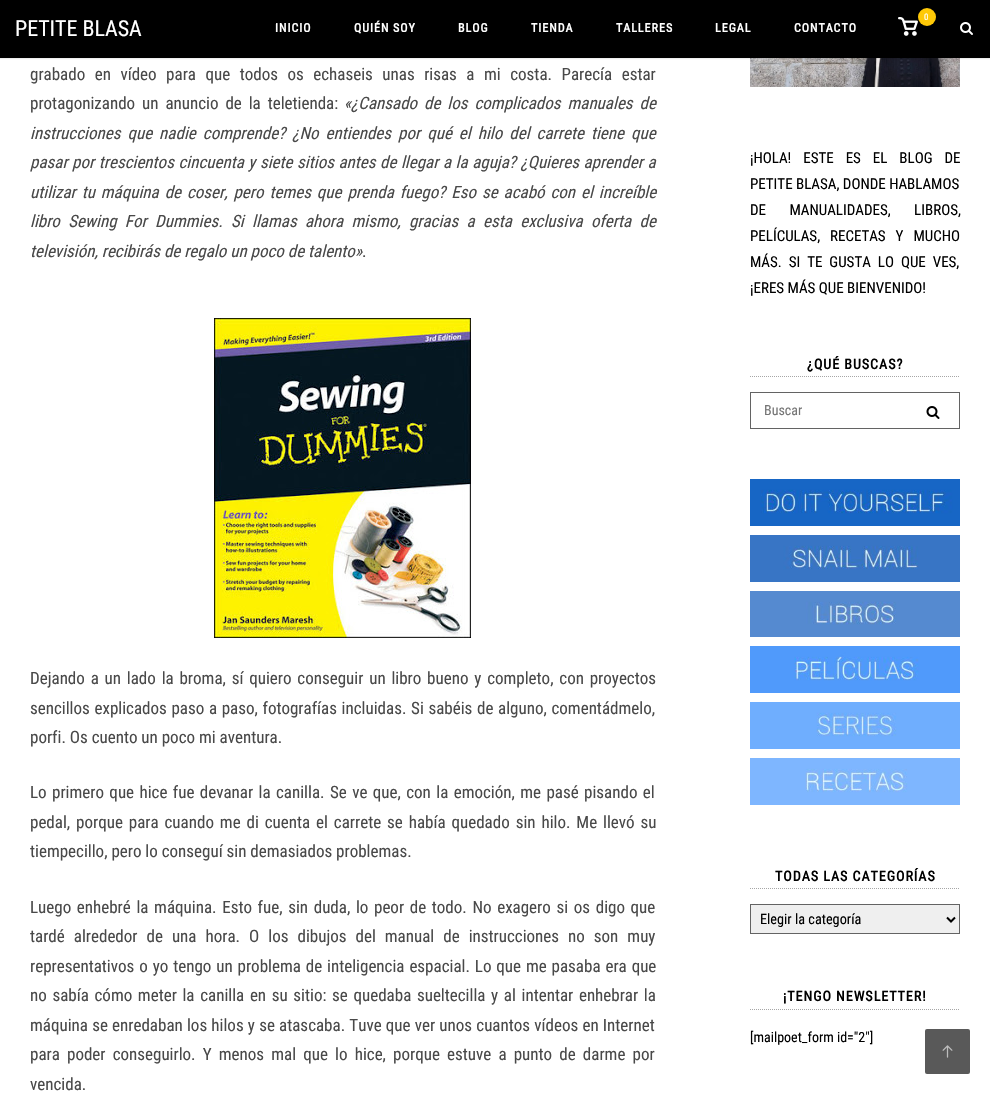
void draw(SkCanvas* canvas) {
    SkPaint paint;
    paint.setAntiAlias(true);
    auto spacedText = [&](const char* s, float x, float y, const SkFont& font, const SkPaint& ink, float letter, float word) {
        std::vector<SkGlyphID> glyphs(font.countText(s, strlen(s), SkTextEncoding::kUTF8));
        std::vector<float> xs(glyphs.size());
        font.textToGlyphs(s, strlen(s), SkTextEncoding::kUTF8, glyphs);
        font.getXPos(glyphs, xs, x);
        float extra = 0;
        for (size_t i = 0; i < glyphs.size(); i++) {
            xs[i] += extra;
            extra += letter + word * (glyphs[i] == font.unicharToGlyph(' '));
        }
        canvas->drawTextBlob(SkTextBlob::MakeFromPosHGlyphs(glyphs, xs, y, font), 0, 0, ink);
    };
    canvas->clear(0xFFFFFFFF);
    canvas->drawImageRect(SkImages::DeferredFromEncodedData(SkData::MakeFromFileName("img4.png")), SkRect::MakeXYWH(750, 58, 210, 29), SkSamplingOptions());
    paint.setColor(0x12000000);
    paint.setMaskFilter(SkMaskFilter::MakeBlur(kNormal_SkBlurStyle, 0.5f));
    canvas->drawRect(SkRect::MakeXYWH(0, 1, 990, 58), paint);
    paint.setMaskFilter(nullptr);
    paint.setColor(0xFF000000);
    canvas->drawRect(SkRect::MakeXYWH(0, 0, 990, 58), paint);
    SkFont font1(fontMgr->matchFamilyStyle("Roboto Condensed", SkFontStyle::Normal()), 22);
    font1.setSubpixel(true);
    paint.setColor(0xFFFFFFFF);
    canvas->drawString("PETITE BLASA", 15, 36, font1, paint);
    canvas->drawImageRect(SkImages::DeferredFromEncodedData(SkData::MakeFromFileName("img1.png")), SkRect::MakeXYWH(898, 17, 20, 19), SkSamplingOptions());
    paint.setColor(0xFFFFC907);
    canvas->drawCircle(927, 17, 9, paint);
    SkFont font2(fontMgr->matchFamilyStyle("Roboto Condensed", SkFontStyle::Normal()), 9);
    font2.setSubpixel(true);
    paint.setColor(0xFFFFFFFF);
    spacedText("0", 924, 20, font2, paint, 1, 0);
    SkFont font3(fontMgr->matchFamilyStyle("Roboto Condensed", SkFontStyle::Bold()), 12);
    font3.setSubpixel(true);
    spacedText("INICIO", 275, 32, font3, paint, 1, 0);
    spacedText("QUIÉN SOY", 354, 32, font3, paint, 1, 0);
    spacedText("BLOG", 458, 32, font3, paint, 1, 0);
    spacedText("TIENDA", 531, 32, font3, paint, 1, 0);
    spacedText("TALLERES", 616, 32, font3, paint, 1, 0);
    spacedText("LEGAL", 715, 32, font3, paint, 1, 0);
    spacedText("CONTACTO", 794, 32, font3, paint, 1, 0);
    canvas->drawImageRect(SkImages::DeferredFromEncodedData(SkData::MakeFromFileName("img2.png")), SkRect::MakeXYWH(960, 22, 13, 13), SkSamplingOptions());
    SkFont font4(fontMgr->matchFamilyStyle("Roboto Condensed", SkFontStyle::Normal()), 17);
    font4.setSubpixel(true);
    paint.setColor(0xFF494949);
    spacedText("grabado en vídeo para que todos os echaseis unas risas a mi costa. Parecía estar", 30, 80, font4, paint, 0, 5.6f);
    spacedText("protagonizando un anuncio de la teletienda:", 30, 109, font4, paint, 0, 3);
    SkFont font5(fontMgr->matchFamilyStyle("Roboto Condensed", SkFontStyle::Italic()), 17);
    font5.setSubpixel(true);
    spacedText("«¿Cansado de los complicados manuales de", 344, 109, font5, paint, 0, 3);
    spacedText("instrucciones que nadie comprende? ¿No entiendes por qué el hilo del carrete tiene que", 30, 139, font5, paint, 0, 3.1f);
    spacedText("pasar por trescientos cincuenta y siete sitios antes de llegar a la aguja? ¿Quieres aprender a", 30, 168, font5, paint, 0, 0.6f);
    spacedText("utilizar tu máquina de coser, pero temes que prenda fuego? Eso se acabó con el increíble", 30, 198, font5, paint, 0, 2);
    spacedText("libro Sewing For Dummies. Si llamas ahora mismo, gracias a esta exclusiva oferta de", 30, 227, font5, paint, 0, 4.4f);
    canvas->drawString("televisión, recibirás de regalo un poco de talento»", 30, 257, font5, paint);
    canvas->drawString(".", 362, 257, font4, paint);
    canvas->drawImageRect(SkImages::DeferredFromEncodedData(SkData::MakeFromFileName("img3.png")), SkRect::MakeXYWH(214, 318, 257, 320), SkSamplingOptions());
    spacedText("Dejando a un lado la broma, sí quiero conseguir un libro bueno y completo, con proyectos", 30, 684, font4, paint, 0, 1.9f);
    spacedText("sencillos explicados paso a paso, fotografías incluidas. Si sabéis de alguno, comentádmelo,", 30, 714, font4, paint, 0, 0.75f);
    canvas->drawString("porfi. Os cuento un poco mi aventura.", 30, 743, font4, paint);
    spacedText("Lo primero que hice fue devanar la canilla. Se ve que, con la emoción, me pasé pisando el", 30, 798, font4, paint, 0, 1.5f);
    spacedText("pedal, porque para cuando me di cuenta el carrete se había quedado sin hilo. Me llevó su", 30, 828, font4, paint, 0, 2);
    canvas->drawString("tiempecillo, pero lo conseguí sin demasiados problemas.", 30, 857, font4, paint);
    spacedText("Luego enhebré la máquina. Esto fue, sin duda, lo peor de todo. No exagero si os digo que", 30, 913, font4, paint, 0, 1.75f);
    spacedText("tardé alrededor de una hora. O los dibujos del manual de instrucciones no son muy", 30, 942, font4, paint, 0, 5.1f);
    spacedText("representativos o yo tengo un problema de inteligencia espacial. Lo que me pasaba era que", 30, 972, font4, paint, 0, 1);
    spacedText("no sabía cómo meter la canilla en su sitio: se quedaba sueltecilla y al intentar enhebrar la", 30, 1001, font4, paint, 0, 1.75f);
    spacedText("máquina se enredaban los hilos y se atascaba. Tuve que ver unos cuantos vídeos en Internet", 30, 1031, font4, paint, 0, 0.3f);
    spacedText("para poder conseguirlo. Y menos mal que lo hice, porque estuve a punto de darme por", 30, 1060, font4, paint, 0, 3.25f);
    canvas->drawString("vencida.", 30, 1090, font4, paint);
    SkFont font6(fontMgr->matchFamilyStyle("Roboto Condensed", SkFontStyle::Normal()), 15);
    font6.setSubpixel(true);
    paint.setColor(0xFF000000);
    spacedText("¡HOLA! ESTE ES EL BLOG DE", 750, 163, font6, paint, 0, 8.5f);
    canvas->drawString("PETITE BLASA, DONDE HABLAMOS", 750, 189, font6, paint);
    spacedText("DE MANUALIDADES, LIBROS,", 750, 215, font6, paint, 0, 20);
    spacedText("PELÍCULAS, RECETAS Y MUCHO", 750, 241, font6, paint, 0, 6.5f);
    spacedText("MÁS. SI TE GUSTA LO QUE VES,", 750, 267, font6, paint, 0, 3.5f);
    canvas->drawString("¡ERES MÁS QUE BIENVENIDO!", 750, 293, font6, paint);
    paint.setStyle(SkPaint::kStroke_Style);
    paint.setStrokeWidth(1);
    paint.setColor(0xFFA6A6A6);
    paint.setPathEffect(SkDashPathEffect::Make({{1, 1}}, 0));
    canvas->drawPath(SkPathBuilder().moveTo(750, 376.5f).lineTo(960, 376.5f).detach(), paint);
    paint.setPathEffect(nullptr);
    SkFont font7(fontMgr->matchFamilyStyle("Roboto Condensed", SkFontStyle::Bold()), 14);
    font7.setSubpixel(true);
    paint.setStyle(SkPaint::kFill_Style);
    paint.setColor(0xFF000000);
    spacedText("¿QUÉ BUSCAS?", 807, 369, font7, paint, 1, 0);
    paint.setStyle(SkPaint::kStroke_Style);
    paint.setColor(0xFF636363);
    canvas->drawRect(SkRect::MakeXYWH(750.5f, 392.5f, 209, 36), paint);
    SkFont font8(fontMgr->matchFamilyStyle("Roboto Condensed", SkFontStyle::Normal()), 14);
    font8.setSubpixel(true);
    paint.setStyle(SkPaint::kFill_Style);
    paint.setColor(0xFF757575);
    canvas->drawString("Buscar", 764, 415, font8, paint);
    canvas->drawImageRect(SkImages::DeferredFromEncodedData(SkData::MakeFromFileName("img5.png")), SkRect::MakeXYWH(926, 406, 14, 13), SkSamplingOptions());
    canvas->drawImageRect(SkImages::DeferredFromEncodedData(SkData::MakeFromFileName("img6.png")), SkRect::MakeXYWH(750, 479, 210, 47), SkSamplingOptions());
    canvas->drawImageRect(SkImages::DeferredFromEncodedData(SkData::MakeFromFileName("img7.png")), SkRect::MakeXYWH(750, 535, 210, 47), SkSamplingOptions());
    canvas->drawImageRect(SkImages::DeferredFromEncodedData(SkData::MakeFromFileName("img8.png")), SkRect::MakeXYWH(750, 591, 210, 46), SkSamplingOptions());
    canvas->drawImageRect(SkImages::DeferredFromEncodedData(SkData::MakeFromFileName("img9.png")), SkRect::MakeXYWH(750, 646, 210, 47), SkSamplingOptions());
    canvas->drawImageRect(SkImages::DeferredFromEncodedData(SkData::MakeFromFileName("img10.png")), SkRect::MakeXYWH(750, 702, 210, 47), SkSamplingOptions());
    canvas->drawImageRect(SkImages::DeferredFromEncodedData(SkData::MakeFromFileName("img11.png")), SkRect::MakeXYWH(750, 758, 210, 47), SkSamplingOptions());
    paint.setStyle(SkPaint::kStroke_Style);
    paint.setColor(0xFFA6A6A6);
    paint.setPathEffect(SkDashPathEffect::Make({{1, 1}}, 0));
    canvas->drawPath(SkPathBuilder().moveTo(750, 888.5f).lineTo(960, 888.5f).detach(), paint);
    paint.setPathEffect(nullptr);
    paint.setStyle(SkPaint::kFill_Style);
    paint.setColor(0xFF000000);
    spacedText("TODAS LAS CATEGORÍAS", 775, 881, font7, paint, 1, 0);
    paint.setColor(0xFFEFEFEF);
    canvas->drawRect(SkRect::MakeXYWH(750.5f, 904.5f, 209, 29), paint);
    paint.setStyle(SkPaint::kStroke_Style);
    paint.setColor(0xFF636363);
    canvas->drawRect(SkRect::MakeXYWH(750.5f, 904.5f, 209, 29), paint);
    paint.setStrokeWidth(2);
    paint.setColor(0xFF000000);
    canvas->drawPath(SkPathBuilder().moveTo(947, 917.5f).lineTo(951, 921.5f).lineTo(955, 917.5f).detach(), paint);
    SkFont font9(fontMgr->matchFamilyStyle("Roboto Condensed", SkFontStyle::Normal()), 14.25f);
    font9.setSubpixel(true);
    paint.setStyle(SkPaint::kFill_Style);
    canvas->drawString("Elegir la categoría", 760, 924, font9, paint);
    paint.setStyle(SkPaint::kStroke_Style);
    paint.setStrokeWidth(1);
    paint.setColor(0xFFA6A6A6);
    paint.setPathEffect(SkDashPathEffect::Make({{1, 1}}, 0));
    canvas->drawPath(SkPathBuilder().moveTo(750, 1009.5f).lineTo(960, 1009.5f).detach(), paint);
    paint.setPathEffect(nullptr);
    paint.setStyle(SkPaint::kFill_Style);
    paint.setColor(0xFF000000);
    spacedText("¡TENGO NEWSLETTER!", 783, 1001, font7, paint, 1, 0);
    canvas->drawString("[mailpoet_form id=\"2\"]", 750, 1042, font8, paint);
    paint.setColor(0xFF595959);
    canvas->drawRoundRect(SkRect::MakeXYWH(925, 1029, 45, 45), 2, 2, paint);
    canvas->drawImageRect(SkImages::DeferredFromEncodedData(SkData::MakeFromFileName("img12.png")), SkRect::MakeXYWH(942, 1045, 11, 13), SkSamplingOptions());
}
